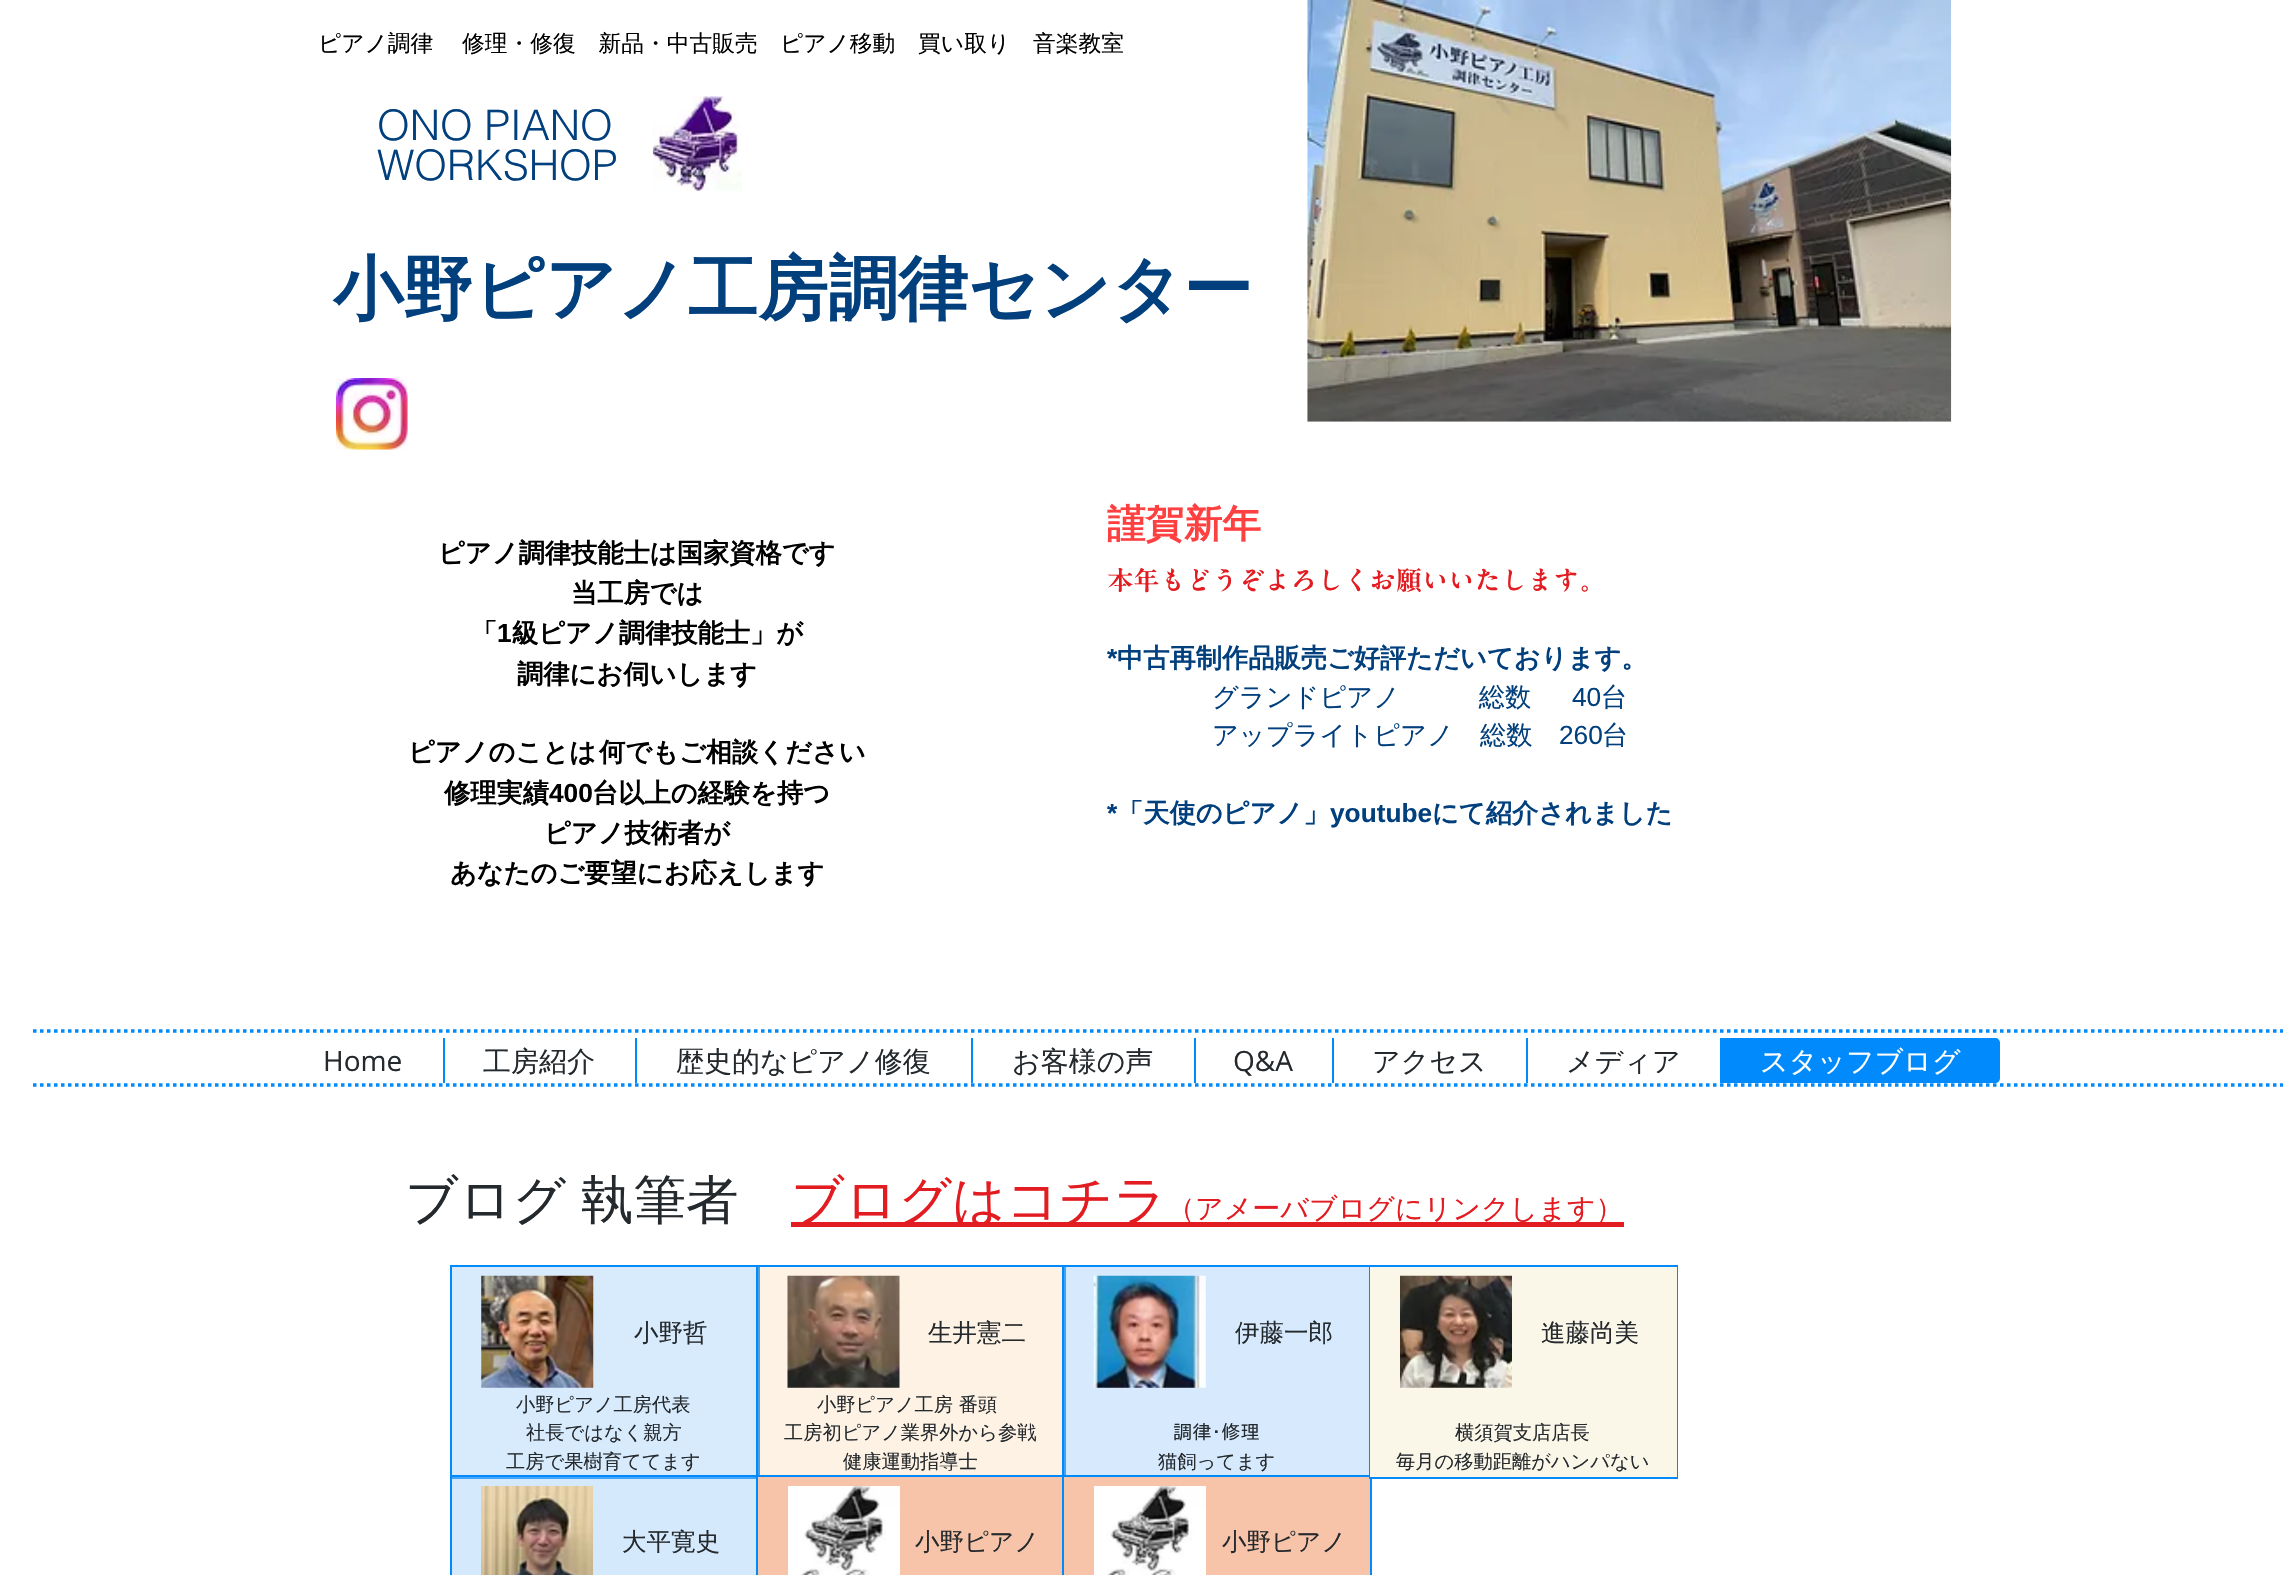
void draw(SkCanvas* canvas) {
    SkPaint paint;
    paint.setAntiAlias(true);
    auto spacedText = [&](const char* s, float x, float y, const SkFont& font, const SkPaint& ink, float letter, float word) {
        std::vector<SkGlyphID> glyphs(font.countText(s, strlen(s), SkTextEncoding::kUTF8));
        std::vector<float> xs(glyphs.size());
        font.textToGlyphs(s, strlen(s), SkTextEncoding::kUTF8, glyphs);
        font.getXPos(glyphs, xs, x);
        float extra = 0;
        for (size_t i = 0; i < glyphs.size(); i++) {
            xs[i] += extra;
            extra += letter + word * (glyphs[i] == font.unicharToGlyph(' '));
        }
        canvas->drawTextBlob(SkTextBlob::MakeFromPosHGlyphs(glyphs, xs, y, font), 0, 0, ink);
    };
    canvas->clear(0xFFFFFFFF);
    SkFont font1(fontMgr->matchFamilyStyle("WenQuanYi Zen Hei", SkFontStyle(500, SkFontStyle::kNormal_Width, SkFontStyle::kUpright_Slant)), 22.75f);
    font1.setSubpixel(true);
    paint.setColor(0xFF000000);
    spacedText("ピアノ調律 　修理・修復　新品・中古販売", 318, 51, font1, paint, 0, -1);
    canvas->drawString("ピアノ移動　買い取り　音楽教室", 780, 51, font1, paint);
    canvas->drawImageRect(SkImages::DeferredFromEncodedData(SkData::MakeFromFileName("img1.png")), SkRect::MakeXYWH(1307, 0, 645, 422), SkSamplingOptions());
    SkFont font2(fontMgr->matchFamilyStyle("helvetica", SkFontStyle(300, SkFontStyle::kNormal_Width, SkFontStyle::kUpright_Slant)), 42);
    font2.setSubpixel(true);
    paint.setColor(0xFF013F7D);
    canvas->drawString("ONO PIANO", 377, 140, font2, paint);
    canvas->drawString("WORKSHOP", 377, 180, font2, paint);
    canvas->drawImageRect(SkImages::DeferredFromEncodedData(SkData::MakeFromFileName("img2.png")), SkRect::MakeXYWH(652, 96, 90, 95), SkSamplingOptions());
    SkFont font3(fontMgr->matchFamilyStyle("WenQuanYi Zen Hei", SkFontStyle::Bold()), 70);
    font3.setSubpixel(true);
    canvas->drawString("小野ピアノ工房調律センター", 333, 313, font3, paint);
    canvas->drawImageRect(SkImages::DeferredFromEncodedData(SkData::MakeFromFileName("img3.png")), SkRect::MakeXYWH(336, 378, 72, 72), SkSamplingOptions());
    SkFont font4(fontMgr->matchFamilyStyle("WenQuanYi Zen Hei", SkFontStyle::Bold()), 38.5f);
    font4.setSubpixel(true);
    paint.setColor(0xFFFF4040);
    canvas->drawString("謹賀新年", 1107, 537, font4, paint);
    SkFont font5(fontMgr->matchFamilyStyle("WenQuanYi Zen Hei", SkFontStyle::Bold()), 26.25f);
    font5.setSubpixel(true);
    paint.setColor(0xFF000000);
    canvas->drawString("ピアノ調律技能士は国家資格です", 438, 562, font5, paint);
    canvas->drawString("当工房では", 571, 602, font5, paint);
    canvas->drawString("「", 471, 642, font5, paint);
    SkFont font6(fontMgr->matchFamilyStyle("Liberation Sans", SkFontStyle::Bold()), 26.25f);
    font6.setSubpixel(true);
    canvas->drawString("1", 497, 642, font6, paint);
    canvas->drawString("級ピアノ調律技能士」が", 512, 642, font5, paint);
    canvas->drawString("調律にお伺いします", 517, 683, font5, paint);
    spacedText("ピアノのことは 何でもご相談ください", 408, 761, font5, paint, 0, -5);
    canvas->drawString("修理実績", 444, 802, font5, paint);
    canvas->drawString("400", 549, 802, font6, paint);
    canvas->drawString("台以上の経験を持つ", 592, 802, font5, paint);
    canvas->drawString("ピアノ技術者が", 544, 842, font5, paint);
    canvas->drawString("あなたのご要望にお応えします", 450, 882, font5, paint);
    SkFont font7(fontMgr->matchFamilyStyle("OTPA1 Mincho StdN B", SkFontStyle::Bold()), 26.25f);
    font7.setSubpixel(true);
    paint.setColor(0xFFE21C21);
    canvas->drawString("本年もどうぞよろしくお願いいたします。", 1107, 590, font7, paint);
    paint.setColor(0xFF013F7D);
    canvas->drawString("*", 1107, 667, font6, paint);
    canvas->drawString("中古再制作品販売ご好評ただいております。", 1117, 667, font5, paint);
    SkFont font8(fontMgr->matchFamilyStyle("WenQuanYi Zen Hei", SkFontStyle(500, SkFontStyle::kNormal_Width, SkFontStyle::kUpright_Slant)), 26.25f);
    font8.setSubpixel(true);
    canvas->drawString("グランドピアノ　　　総数", 1212, 706, font8, paint);
    SkFont font9(fontMgr->matchFamilyStyle("Liberation Sans", SkFontStyle::Normal()), 26.25f);
    font9.setSubpixel(true);
    canvas->drawString("40", 1572, 706, font9, paint);
    canvas->drawString("台", 1601, 706, font8, paint);
    canvas->drawString("アップライトピアノ　総数", 1212, 744, font8, paint);
    canvas->drawString("260", 1559, 744, font9, paint);
    canvas->drawString("台", 1602, 744, font8, paint);
    canvas->drawString("*", 1107, 822, font6, paint);
    canvas->drawString("「天使のピアノ」", 1117, 822, font5, paint);
    canvas->drawString("youtube", 1330, 822, font6, paint);
    canvas->drawString("にて紹介されました", 1432, 822, font5, paint);
    paint.setStyle(SkPaint::kStroke_Style);
    paint.setStrokeWidth(3.5f);
    paint.setColor(0xFF008AFC);
    paint.setPathEffect(SkDashPathEffect::Make({{3.5f, 3.5f}}, 0));
    canvas->drawPath(SkPathBuilder().moveTo(33, 1031).lineTo(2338, 1031).detach(), paint);
    paint.setPathEffect(nullptr);
    SkFont font10(fontMgr->matchFamilyStyle("Open Sans", SkFontStyle::Normal()), 28);
    font10.setSubpixel(true);
    paint.setStyle(SkPaint::kFill_Style);
    paint.setColor(0xFF24292D);
    canvas->drawString("Home", 323, 1071, font10, paint);
    paint.setColor(0xFF008AFC);
    canvas->drawRect(SkRect::MakeXYWH(443, 1038, 2, 45), paint);
    SkFont font11(fontMgr->matchFamilyStyle("WenQuanYi Zen Hei", SkFontStyle(500, SkFontStyle::kNormal_Width, SkFontStyle::kUpright_Slant)), 28);
    font11.setSubpixel(true);
    paint.setColor(0xFF24292D);
    canvas->drawString("工房紹介", 483, 1071, font11, paint);
    paint.setColor(0xFF008AFC);
    canvas->drawRect(SkRect::MakeXYWH(635, 1038, 2, 45), paint);
    paint.setColor(0xFF24292D);
    canvas->drawString("歴史的なピアノ修復", 676, 1071, font11, paint);
    paint.setColor(0xFF008AFC);
    canvas->drawRect(SkRect::MakeXYWH(971, 1038, 2, 45), paint);
    paint.setColor(0xFF24292D);
    canvas->drawString("お客様の声", 1012, 1071, font11, paint);
    paint.setColor(0xFF008AFC);
    canvas->drawRect(SkRect::MakeXYWH(1194, 1038, 2, 45), paint);
    paint.setColor(0xFF24292D);
    canvas->drawString("Q&A", 1233, 1071, font10, paint);
    paint.setColor(0xFF008AFC);
    canvas->drawRect(SkRect::MakeXYWH(1332, 1038, 2, 45), paint);
    paint.setColor(0xFF24292D);
    canvas->drawString("アクセス", 1372, 1071, font11, paint);
    paint.setColor(0xFF008AFC);
    canvas->drawRect(SkRect::MakeXYWH(1526, 1038, 2, 45), paint);
    paint.setColor(0xFF24292D);
    canvas->drawString("メディア", 1566, 1071, font11, paint);
    paint.setColor(0xFF008AFC);
    canvas->drawPath(SkPathBuilder().moveTo(1720, 1038).lineTo(1995, 1038).cubicTo(1998, 1038, 2000, 1040, 2000, 1043).lineTo(2000, 1078).cubicTo(2000, 1081, 1998, 1083, 1995, 1083).lineTo(1720, 1083).close().detach(), paint);
    paint.setColor(0xFFFFFFFF);
    canvas->drawString("スタッフブログ", 1760, 1071, font11, paint);
    paint.setStyle(SkPaint::kStroke_Style);
    paint.setColor(0xFF008AFC);
    paint.setPathEffect(SkDashPathEffect::Make({{3.5f, 3.5f}}, 0));
    canvas->drawPath(SkPathBuilder().moveTo(33, 1085).lineTo(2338, 1085).detach(), paint);
    paint.setPathEffect(nullptr);
    SkFont font12(fontMgr->matchFamilyStyle("WenQuanYi Zen Hei", SkFontStyle(500, SkFontStyle::kNormal_Width, SkFontStyle::kUpright_Slant)), 52.5f);
    font12.setSubpixel(true);
    paint.setStyle(SkPaint::kFill_Style);
    paint.setColor(0xFF24292D);
    spacedText("ブログ 執筆者", 405, 1218, font12, paint, 0, -1);
    paint.setColor(0xFFE21C21);
    canvas->drawRect(SkRect::MakeXYWH(791, 1222, 833, 5), paint);
    canvas->drawString("ブログはコチラ", 791, 1218, font12, paint);
    canvas->drawString("（アメーバブログにリンクします）", 1167, 1218, font11, paint);
    paint.setStyle(SkPaint::kStroke_Style);
    paint.setStrokeWidth(2);
    paint.setColor(0xFF008AFC);
    canvas->drawRect(SkRect::MakeXYWH(451, 1266, 308, 212), paint);
    paint.setStyle(SkPaint::kFill_Style);
    paint.setColor(0xFFD8EBFD);
    canvas->drawRect(SkRect::MakeXYWH(452, 1267, 304, 208), paint);
    canvas->drawImageRect(SkImages::DeferredFromEncodedData(SkData::MakeFromFileName("img4.png")), SkRect::MakeXYWH(481, 1275, 113, 113), SkSamplingOptions());
    SkFont font13(fontMgr->matchFamilyStyle("WenQuanYi Zen Hei", SkFontStyle(500, SkFontStyle::kNormal_Width, SkFontStyle::kUpright_Slant)), 24.5f);
    font13.setSubpixel(true);
    paint.setColor(0xFF24292D);
    canvas->drawString("小野哲", 634, 1341, font13, paint);
    SkFont font14(fontMgr->matchFamilyStyle("WenQuanYi Zen Hei", SkFontStyle(500, SkFontStyle::kNormal_Width, SkFontStyle::kUpright_Slant)), 19.25f);
    font14.setSubpixel(true);
    canvas->drawString("小野ピアノ工房代表", 516, 1411, font14, paint);
    canvas->drawString("社長ではなく親方", 526, 1439, font14, paint);
    canvas->drawString("工房で果樹育ててます", 506, 1468, font14, paint);
    paint.setStyle(SkPaint::kStroke_Style);
    paint.setColor(0xFF008AFC);
    canvas->drawRect(SkRect::MakeXYWH(451, 1476, 308, 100), paint);
    paint.setStyle(SkPaint::kFill_Style);
    paint.setColor(0x6B9BCBFA);
    canvas->drawRect(SkRect::MakeXYWH(452, 1477, 304, 98), paint);
    canvas->drawImageRect(SkImages::DeferredFromEncodedData(SkData::MakeFromFileName("img5.png")), SkRect::MakeXYWH(481, 1486, 112, 89), SkSamplingOptions());
    paint.setColor(0xFF24292D);
    canvas->drawString("大平寛史", 622, 1550, font13, paint);
    paint.setStyle(SkPaint::kStroke_Style);
    paint.setColor(0xFF008AFC);
    canvas->drawRect(SkRect::MakeXYWH(757, 1266, 308, 212), paint);
    paint.setStyle(SkPaint::kFill_Style);
    paint.setColor(0x4DF9D5A6);
    canvas->drawRect(SkRect::MakeXYWH(758, 1267, 304, 208), paint);
    canvas->drawImageRect(SkImages::DeferredFromEncodedData(SkData::MakeFromFileName("img6.png")), SkRect::MakeXYWH(787, 1275, 113, 113), SkSamplingOptions());
    paint.setColor(0xFF24292D);
    canvas->drawString("生井憲二", 928, 1341, font13, paint);
    canvas->drawString("小野ピアノ工房 番頭", 817, 1411, font14, paint);
    canvas->drawString("工房初ピアノ業界外から参戦", 784, 1439, font14, paint);
    canvas->drawString("健康運動指導士", 843, 1468, font14, paint);
    paint.setStyle(SkPaint::kStroke_Style);
    paint.setColor(0xFF008AFC);
    canvas->drawRect(SkRect::MakeXYWH(757, 1476, 308, 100), paint);
    paint.setStyle(SkPaint::kFill_Style);
    paint.setColor(0xFFF7C4A9);
    canvas->drawRect(SkRect::MakeXYWH(758, 1477, 304, 98), paint);
    canvas->drawImageRect(SkImages::DeferredFromEncodedData(SkData::MakeFromFileName("img7.png")), SkRect::MakeXYWH(788, 1486, 112, 89), SkSamplingOptions());
    paint.setColor(0xFF24292D);
    canvas->drawString("小野ピアノ", 915, 1550, font13, paint);
    paint.setStyle(SkPaint::kStroke_Style);
    paint.setColor(0xFF008AFC);
    canvas->drawRect(SkRect::MakeXYWH(1063, 1266, 308, 212), paint);
    paint.setStyle(SkPaint::kFill_Style);
    paint.setColor(0x669BCBFA);
    canvas->drawRect(SkRect::MakeXYWH(1064, 1267, 305, 208), paint);
    canvas->drawImageRect(SkImages::DeferredFromEncodedData(SkData::MakeFromFileName("img8.png")), SkRect::MakeXYWH(1093, 1275, 113, 113), SkSamplingOptions());
    paint.setColor(0xFF24292D);
    canvas->drawString("伊藤一郎", 1235, 1341, font13, paint);
    SkFont font15(fontMgr->matchFamilyStyle("IPAPGothic", SkFontStyle::Normal()), 19.25f);
    font15.setSubpixel(true);
    canvas->drawString("調律･修理", 1173, 1439, font15, paint);
    canvas->drawString("猫飼ってます", 1158, 1468, font14, paint);
    paint.setStyle(SkPaint::kStroke_Style);
    paint.setColor(0xFF008AFC);
    canvas->drawRect(SkRect::MakeXYWH(1063, 1476, 308, 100), paint);
    paint.setStyle(SkPaint::kFill_Style);
    paint.setColor(0xFFF7C4A9);
    canvas->drawRect(SkRect::MakeXYWH(1064, 1477, 306, 98), paint);
    canvas->drawImageRect(SkImages::DeferredFromEncodedData(SkData::MakeFromFileName("img9.png")), SkRect::MakeXYWH(1094, 1486, 112, 89), SkSamplingOptions());
    paint.setColor(0xFF24292D);
    canvas->drawString("小野ピアノ", 1222, 1550, font13, paint);
    paint.setStyle(SkPaint::kStroke_Style);
    paint.setColor(0xFF008AFC);
    canvas->drawRect(SkRect::MakeXYWH(1370, 1266, 307, 212), paint);
    paint.setStyle(SkPaint::kFill_Style);
    paint.setColor(0xFFFAF6E8);
    canvas->drawRect(SkRect::MakeXYWH(1370, 1267, 307, 210), paint);
    canvas->drawImageRect(SkImages::DeferredFromEncodedData(SkData::MakeFromFileName("img10.png")), SkRect::MakeXYWH(1400, 1275, 112, 113), SkSamplingOptions());
    paint.setColor(0xFF24292D);
    canvas->drawString("進藤尚美", 1541, 1341, font13, paint);
    canvas->drawString("横須賀支店店長", 1455, 1439, font14, paint);
    canvas->drawString("毎月の移動距離がハンパない", 1396, 1468, font14, paint);
}
